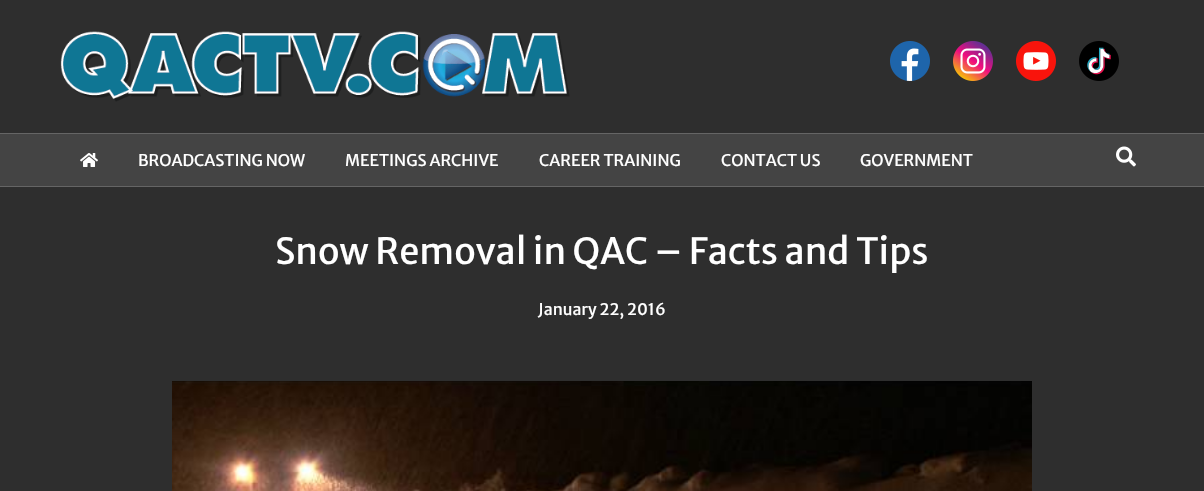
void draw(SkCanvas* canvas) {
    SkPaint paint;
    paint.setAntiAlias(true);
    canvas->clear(0xFF2E2E2E);
    canvas->drawImageRect(SkImages::DeferredFromEncodedData(SkData::MakeFromFileName("img1.png")), SkRect::MakeXYWH(60, 31, 510, 71), SkSamplingOptions());
    canvas->drawImageRect(SkImages::DeferredFromEncodedData(SkData::MakeFromFileName("img2.png")), SkRect::MakeXYWH(890, 41, 40, 40), SkSamplingOptions());
    canvas->drawImageRect(SkImages::DeferredFromEncodedData(SkData::MakeFromFileName("img3.png")), SkRect::MakeXYWH(953, 41, 40, 40), SkSamplingOptions());
    canvas->drawImageRect(SkImages::DeferredFromEncodedData(SkData::MakeFromFileName("img4.png")), SkRect::MakeXYWH(1016, 41, 40, 40), SkSamplingOptions());
    canvas->drawImageRect(SkImages::DeferredFromEncodedData(SkData::MakeFromFileName("img5.png")), SkRect::MakeXYWH(1079, 41, 40, 40), SkSamplingOptions());
    paint.setColor(0xFF444444);
    canvas->drawRect(SkRect::MakeXYWH(0, 134, 1204, 52), paint);
    paint.setColor(0xFF656565);
    canvas->drawRect(SkRect::MakeXYWH(0, 133, 1204, 1), paint);
    canvas->drawRect(SkRect::MakeXYWH(0, 186, 1204, 1), paint);
    canvas->drawImageRect(SkImages::DeferredFromEncodedData(SkData::MakeFromFileName("img6.png")), SkRect::MakeXYWH(80, 153, 18, 14), SkSamplingOptions());
    SkFont font1(fontMgr->matchFamilyStyle("Merriweather Sans", SkFontStyle::Normal()), 16);
    font1.setSubpixel(true);
    paint.setColor(0xFFFFFFFF);
    canvas->drawString("BROADCASTING NOW", 138, 166, font1, paint);
    canvas->drawString("MEETINGS ARCHIVE", 345, 166, font1, paint);
    canvas->drawString("CAREER TRAINING", 539, 166, font1, paint);
    canvas->drawString("CONTACT US", 721, 166, font1, paint);
    canvas->drawString("GOVERNMENT", 860, 166, font1, paint);
    canvas->drawImageRect(SkImages::DeferredFromEncodedData(SkData::MakeFromFileName("img7.png")), SkRect::MakeXYWH(1116, 146, 20, 21), SkSamplingOptions());
    SkFont font2(fontMgr->matchFamilyStyle("Merriweather Sans", SkFontStyle::Normal()), 36);
    font2.setSubpixel(true);
    canvas->drawString("Snow Removal in QAC – Facts and Tips", 275, 264, font2, paint);
    canvas->drawString("January 22, 2016", 538, 315, font1, paint);
    canvas->drawImageRect(SkImages::DeferredFromEncodedData(SkData::MakeFromFileName("img8.png")), SkRect::MakeXYWH(172, 381, 860, 110), SkSamplingOptions());
}
